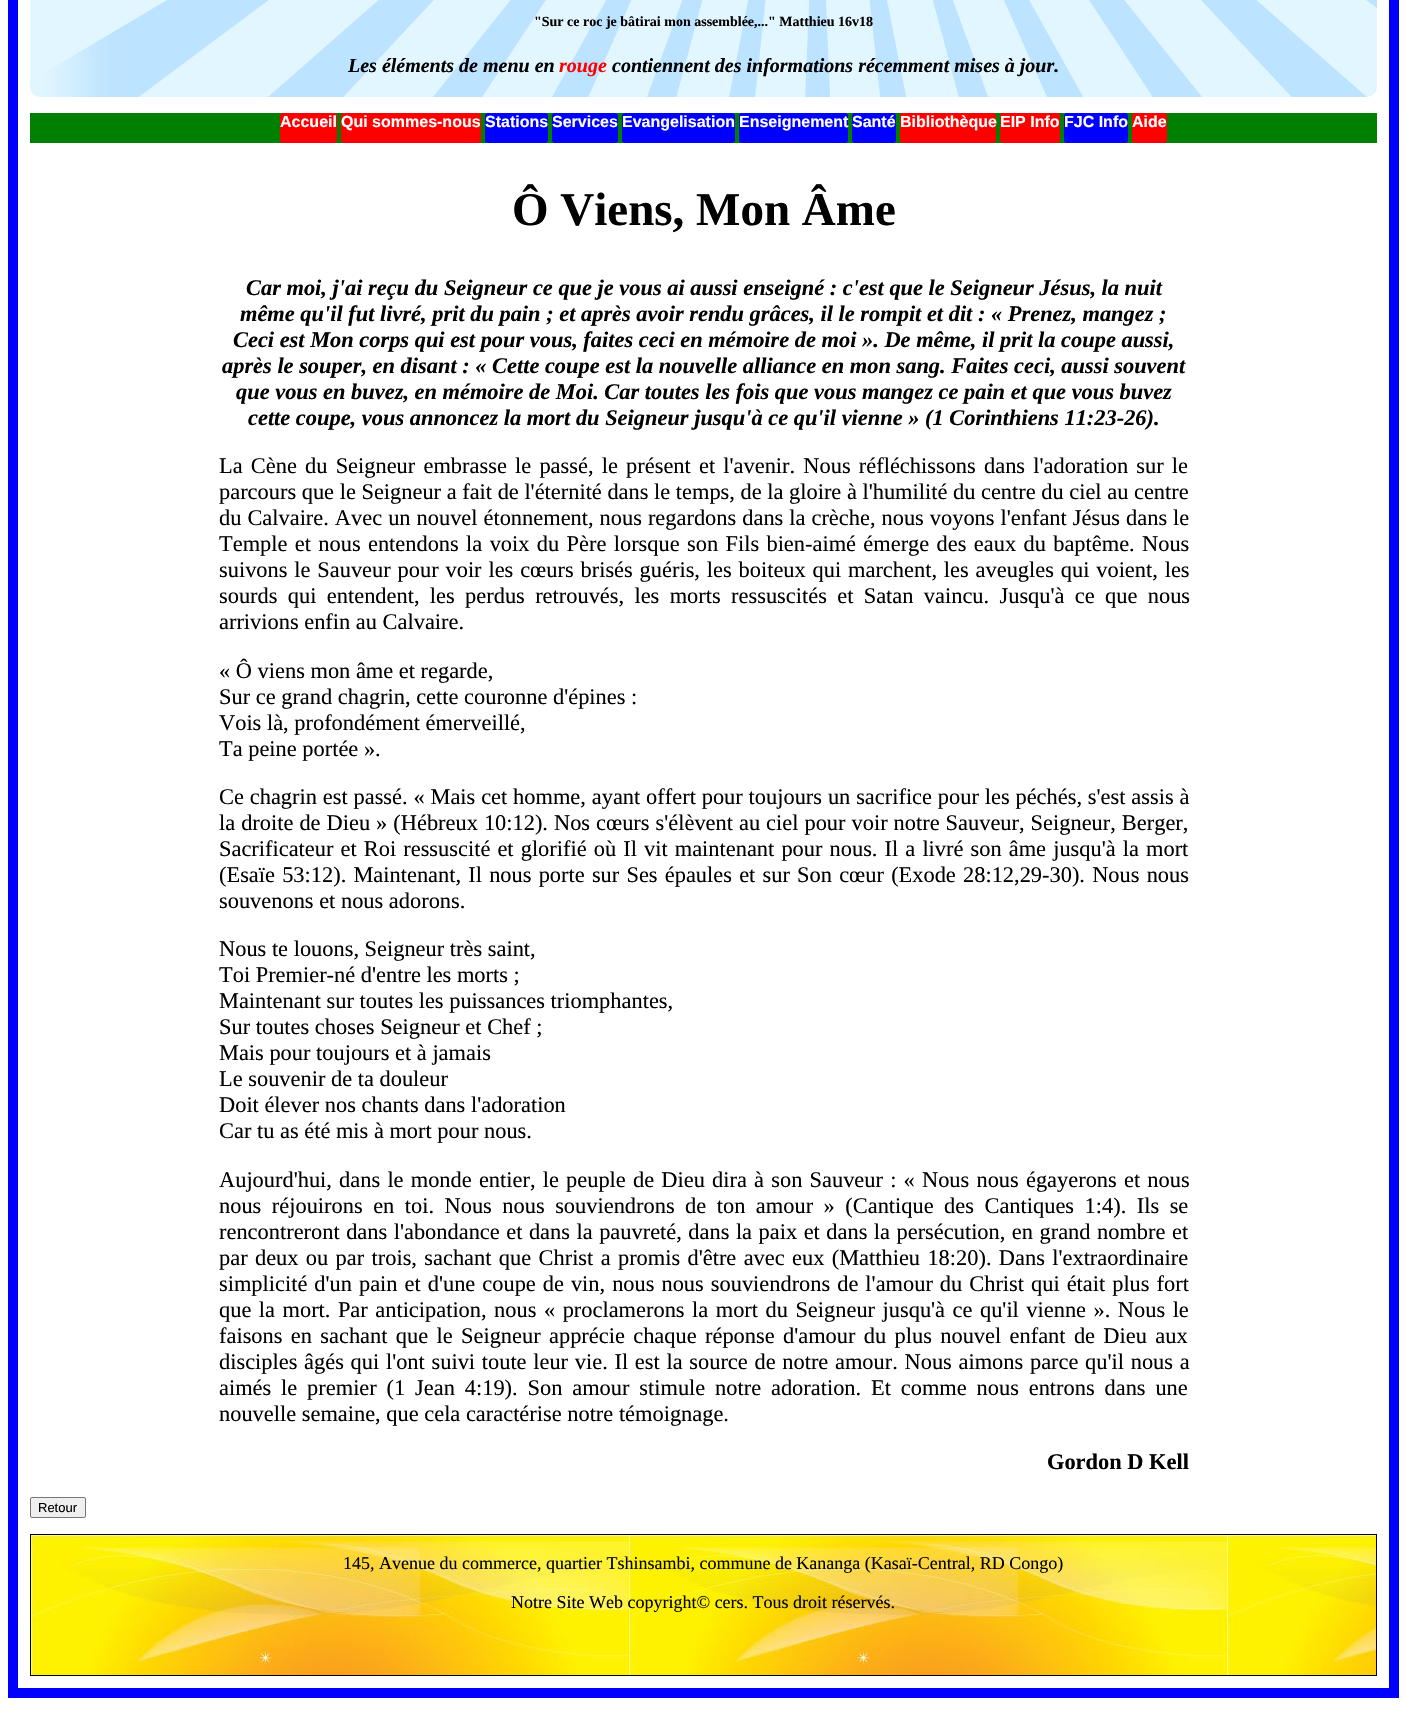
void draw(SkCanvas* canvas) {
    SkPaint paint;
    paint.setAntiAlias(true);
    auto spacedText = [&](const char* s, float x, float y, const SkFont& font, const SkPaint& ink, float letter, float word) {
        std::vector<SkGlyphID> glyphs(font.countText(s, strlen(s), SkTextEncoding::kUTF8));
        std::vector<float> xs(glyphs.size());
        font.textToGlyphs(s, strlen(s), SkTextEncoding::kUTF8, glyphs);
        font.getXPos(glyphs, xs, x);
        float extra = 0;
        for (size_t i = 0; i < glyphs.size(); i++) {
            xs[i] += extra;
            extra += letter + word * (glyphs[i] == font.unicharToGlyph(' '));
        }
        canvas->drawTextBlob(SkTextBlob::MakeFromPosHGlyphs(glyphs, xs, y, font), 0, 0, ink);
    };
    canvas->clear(0xFFFFFFFF);
    paint.setStyle(SkPaint::kStroke_Style);
    paint.setStrokeWidth(10);
    paint.setColor(0xFF0000FF);
    canvas->drawRect(SkRect::MakeXYWH(13, -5, 1381, 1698), paint);
    canvas->drawImageRect(SkImages::DeferredFromEncodedData(SkData::MakeFromFileName("img1.png")), SkRect::MakeXYWH(30, 0, 1347, 97), SkSamplingOptions());
    SkFont font1(fontMgr->matchFamilyStyle("Liberation Serif", SkFontStyle::Bold()), 14);
    font1.setSubpixel(true);
    paint.setStyle(SkPaint::kFill_Style);
    paint.setColor(0xFF000000);
    canvas->drawString("\"Sur ce roc je bâtirai mon assemblée,...\" Matthieu 16v18", 534, 26, font1, paint);
    SkFont font2(fontMgr->matchFamilyStyle("Liberation Serif", SkFontStyle::BoldItalic()), 20);
    font2.setSubpixel(true);
    canvas->drawString("Les éléments de menu en", 348, 72, font2, paint);
    paint.setColor(0xFFFF0000);
    canvas->drawString("rouge", 559, 72, font2, paint);
    paint.setColor(0xFF000000);
    canvas->drawString("contiennent des informations récemment mises à jour.", 612, 72, font2, paint);
    paint.setColor(0xFF008000);
    canvas->drawRect(SkRect::MakeXYWH(30, 113, 1347, 30), paint);
    paint.setColor(0xFFFF0000);
    canvas->drawRoundRect(SkRect::MakeXYWH(280, 113, 57, 30), 3, 3, paint);
    SkFont font3(fontMgr->matchFamilyStyle("Liberation Sans", SkFontStyle::Bold()), 16);
    font3.setSubpixel(true);
    paint.setColor(0xFFFFFFFF);
    canvas->drawString("Accueil", 280, 127, font3, paint);
    paint.setColor(0xFFFF0000);
    canvas->drawRoundRect(SkRect::MakeXYWH(341, 113, 140, 30), 3, 3, paint);
    paint.setColor(0xFFFFFFFF);
    canvas->drawString("Qui sommes-nous", 341, 127, font3, paint);
    paint.setColor(0xFF0000FF);
    canvas->drawRoundRect(SkRect::MakeXYWH(485, 113, 63, 30), 3, 3, paint);
    paint.setColor(0xFFFFFFFF);
    canvas->drawString("Stations", 485, 127, font3, paint);
    paint.setColor(0xFF0000FF);
    canvas->drawRoundRect(SkRect::MakeXYWH(552, 113, 66, 30), 3, 3, paint);
    paint.setColor(0xFFFFFFFF);
    canvas->drawString("Services", 552, 127, font3, paint);
    paint.setColor(0xFF0000FF);
    canvas->drawRoundRect(SkRect::MakeXYWH(622, 113, 113, 30), 3, 3, paint);
    paint.setColor(0xFFFFFFFF);
    canvas->drawString("Evangelisation", 622, 127, font3, paint);
    paint.setColor(0xFF0000FF);
    canvas->drawRoundRect(SkRect::MakeXYWH(739, 113, 109, 30), 3, 3, paint);
    paint.setColor(0xFFFFFFFF);
    canvas->drawString("Enseignement", 739, 127, font3, paint);
    paint.setColor(0xFF0000FF);
    canvas->drawRoundRect(SkRect::MakeXYWH(852, 113, 44, 30), 3, 3, paint);
    paint.setColor(0xFFFFFFFF);
    canvas->drawString("Santé", 852, 127, font3, paint);
    paint.setColor(0xFFFF0000);
    canvas->drawRoundRect(SkRect::MakeXYWH(900, 113, 96, 30), 3, 3, paint);
    paint.setColor(0xFFFFFFFF);
    canvas->drawString("Bibliothèque", 900, 127, font3, paint);
    paint.setColor(0xFFFF0000);
    canvas->drawRoundRect(SkRect::MakeXYWH(1000, 113, 60, 30), 3, 3, paint);
    paint.setColor(0xFFFFFFFF);
    canvas->drawString("EIP Info", 1000, 127, font3, paint);
    paint.setColor(0xFF0000FF);
    canvas->drawRoundRect(SkRect::MakeXYWH(1064, 113, 64, 30), 3, 3, paint);
    paint.setColor(0xFFFFFFFF);
    canvas->drawString("FJC Info", 1064, 127, font3, paint);
    paint.setColor(0xFFFF0000);
    canvas->drawRoundRect(SkRect::MakeXYWH(1132, 113, 35, 30), 3, 3, paint);
    paint.setColor(0xFFFFFFFF);
    canvas->drawString("Aide", 1132, 127, font3, paint);
    SkFont font4(fontMgr->matchFamilyStyle("Liberation Serif", SkFontStyle::Bold()), 47);
    font4.setSubpixel(true);
    paint.setColor(0xFF000000);
    canvas->drawString("Ô Viens, Mon Âme", 512, 225, font4, paint);
    SkFont font5(fontMgr->matchFamilyStyle("Liberation Serif", SkFontStyle::BoldItalic()), 22.4f);
    font5.setSubpixel(true);
    canvas->drawString("Car moi, j'ai reçu du Seigneur ce que je vous ai aussi enseigné : c'est que le Seigneur Jésus, la nuit", 246, 295, font5, paint);
    canvas->drawString("même qu'il fut livré, prit du pain ; et après avoir rendu grâces, il le rompit et dit : « Prenez, mangez ;", 240, 321, font5, paint);
    canvas->drawString("Ceci est Mon corps qui est pour vous, faites ceci en mémoire de moi ». De même, il prit la coupe aussi,", 233, 347, font5, paint);
    canvas->drawString("après le souper, en disant : « Cette coupe est la nouvelle alliance en mon sang. Faites ceci, aussi souvent", 222, 373, font5, paint);
    canvas->drawString("que vous en buvez, en mémoire de Moi. Car toutes les fois que vous mangez ce pain et que vous buvez", 236, 399, font5, paint);
    canvas->drawString("cette coupe, vous annoncez la mort du Seigneur jusqu'à ce qu'il vienne » (1 Corinthiens 11:23-26).", 248, 425, font5, paint);
    SkFont font6(fontMgr->matchFamilyStyle("Liberation Serif", SkFontStyle::Normal()), 22.4f);
    font6.setSubpixel(true);
    spacedText("La Cène du Seigneur embrasse le passé, le présent et l'avenir. Nous réfléchissons dans l'adoration sur le", 219, 473, font6, paint, 0, 2.6f);
    canvas->drawString("parcours que le Seigneur a fait de l'éternité dans le temps, de la gloire à l'humilité du centre du ciel au centre", 219, 499, font6, paint);
    spacedText("du Calvaire. Avec un nouvel étonnement, nous regardons dans la crèche, nous voyons l'enfant Jésus dans le", 219, 525, font6, paint, 0, 0.4f);
    spacedText("Temple et nous entendons la voix du Père lorsque son Fils bien-aimé émerge des eaux du baptême. Nous", 219, 551, font6, paint, 0, 1.75f);
    spacedText("suivons le Sauveur pour voir les cœurs brisés guéris, les boiteux qui marchent, les aveugles qui voient, les", 219, 577, font6, paint, 0, 1.25f);
    spacedText("sourds qui entendent, les perdus retrouvés, les morts ressuscités et Satan vaincu. Jusqu'à ce que nous", 219, 603, font6, paint, 0, 4.75f);
    canvas->drawString("arrivions enfin au Calvaire.", 219, 629, font6, paint);
    canvas->drawString("« Ô viens mon âme et regarde,", 219, 678, font6, paint);
    canvas->drawString("Sur ce grand chagrin, cette couronne d'épines :", 219, 704, font6, paint);
    canvas->drawString("Vois là, profondément émerveillé,", 219, 730, font6, paint);
    canvas->drawString("Ta peine portée ».", 219, 756, font6, paint);
    spacedText("Ce chagrin est passé. « Mais cet homme, ayant offert pour toujours un sacrifice pour les péchés, s'est assis à", 219, 804, font6, paint, 0, 0.25f);
    spacedText("la droite de Dieu » (Hébreux 10:12). Nos cœurs s'élèvent au ciel pour voir notre Sauveur, Seigneur, Berger,", 219, 830, font6, paint, 0, 0.4f);
    spacedText("Sacrificateur et Roi ressuscité et glorifié où Il vit maintenant pour nous. Il a livré son âme jusqu'à la mort", 219, 856, font6, paint, 0, 1.5f);
    spacedText("(Esaïe 53:12). Maintenant, Il nous porte sur Ses épaules et sur Son cœur (Exode 28:12,29-30). Nous nous", 219, 882, font6, paint, 0, 1.6f);
    canvas->drawString("souvenons et nous adorons.", 219, 908, font6, paint);
    canvas->drawString("Nous te louons, Seigneur très saint,", 219, 956, font6, paint);
    canvas->drawString("Toi Premier-né d'entre les morts ;", 219, 982, font6, paint);
    canvas->drawString("Maintenant sur toutes les puissances triomphantes,", 219, 1008, font6, paint);
    canvas->drawString("Sur toutes choses Seigneur et Chef ;", 219, 1034, font6, paint);
    canvas->drawString("Mais pour toujours et à jamais", 219, 1060, font6, paint);
    canvas->drawString("Le souvenir de ta douleur", 219, 1086, font6, paint);
    canvas->drawString("Doit élever nos chants dans l'adoration", 219, 1112, font6, paint);
    canvas->drawString("Car tu as été mis à mort pour nous.", 219, 1138, font6, paint);
    spacedText("Aujourd'hui, dans le monde entier, le peuple de Dieu dira à son Sauveur : « Nous nous égayerons et nous", 219, 1187, font6, paint, 0, 1.6f);
    spacedText("nous réjouirons en toi. Nous nous souviendrons de ton amour » (Cantique des Cantiques 1:4). Ils se", 219, 1213, font6, paint, 0, 4.9f);
    spacedText("rencontreront dans l'abondance et dans la pauvreté, dans la paix et dans la persécution, en grand nombre et", 219, 1239, font6, paint, 0, 0.9f);
    spacedText("par deux ou par trois, sachant que Christ a promis d'être avec eux (Matthieu 18:20). Dans l'extraordinaire", 219, 1265, font6, paint, 0, 1.75f);
    spacedText("simplicité d'un pain et d'une coupe de vin, nous nous souviendrons de l'amour du Christ qui était plus fort", 219, 1291, font6, paint, 0, 1.4f);
    spacedText("que la mort. Par anticipation, nous « proclamerons la mort du Seigneur jusqu'à ce qu'il vienne ». Nous le", 219, 1317, font6, paint, 0, 1.9f);
    spacedText("faisons en sachant que le Seigneur apprécie chaque réponse d'amour du plus nouvel enfant de Dieu aux", 219, 1343, font6, paint, 0, 2.75f);
    spacedText("disciples âgés qui l'ont suivi toute leur vie. Il est la source de notre amour. Nous aimons parce qu'il nous a", 219, 1369, font6, paint, 0, 1.1f);
    spacedText("aimés le premier (1 Jean 4:19). Son amour stimule notre adoration. Et comme nous entrons dans une", 219, 1395, font6, paint, 0, 4.25f);
    canvas->drawString("nouvelle semaine, que cela caractérise notre témoignage.", 219, 1421, font6, paint);
    SkFont font7(fontMgr->matchFamilyStyle("Liberation Serif", SkFontStyle::Bold()), 22.4f);
    font7.setSubpixel(true);
    canvas->drawString("Gordon D Kell", 1047, 1469, font7, paint);
    paint.setColor(0xFFEFEFEF);
    canvas->drawRoundRect(SkRect::MakeXYWH(30.5f, 1497.5f, 55, 20), 1.5f, 1.5f, paint);
    paint.setStyle(SkPaint::kStroke_Style);
    paint.setStrokeWidth(1);
    paint.setColor(0xFF767676);
    canvas->drawRoundRect(SkRect::MakeXYWH(30.5f, 1497.5f, 55, 20), 1.5f, 1.5f, paint);
    SkFont font8(fontMgr->matchFamilyStyle("Liberation Sans", SkFontStyle::Normal()), 13);
    font8.setSubpixel(true);
    paint.setStyle(SkPaint::kFill_Style);
    paint.setColor(0xFF000000);
    canvas->drawString("Retour", 38, 1512, font8, paint);
    canvas->drawImageRect(SkImages::DeferredFromEncodedData(SkData::MakeFromFileName("img2.png")), SkRect::MakeXYWH(31, 1535, 1345, 140), SkSamplingOptions());
    paint.setStyle(SkPaint::kStroke_Style);
    canvas->drawRect(SkRect::MakeXYWH(30.5f, 1534.5f, 1346, 141), paint);
    SkFont font9(fontMgr->matchFamilyStyle("Liberation Serif", SkFontStyle::Normal()), 18);
    font9.setSubpixel(true);
    paint.setStyle(SkPaint::kFill_Style);
    canvas->drawString("145, Avenue du commerce, quartier Tshinsambi, commune de Kananga (Kasaï-Central, RD Congo)", 343, 1569, font9, paint);
    canvas->drawString("Notre Site Web copyright© cers. Tous droit réservés.", 511, 1608, font9, paint);
}
